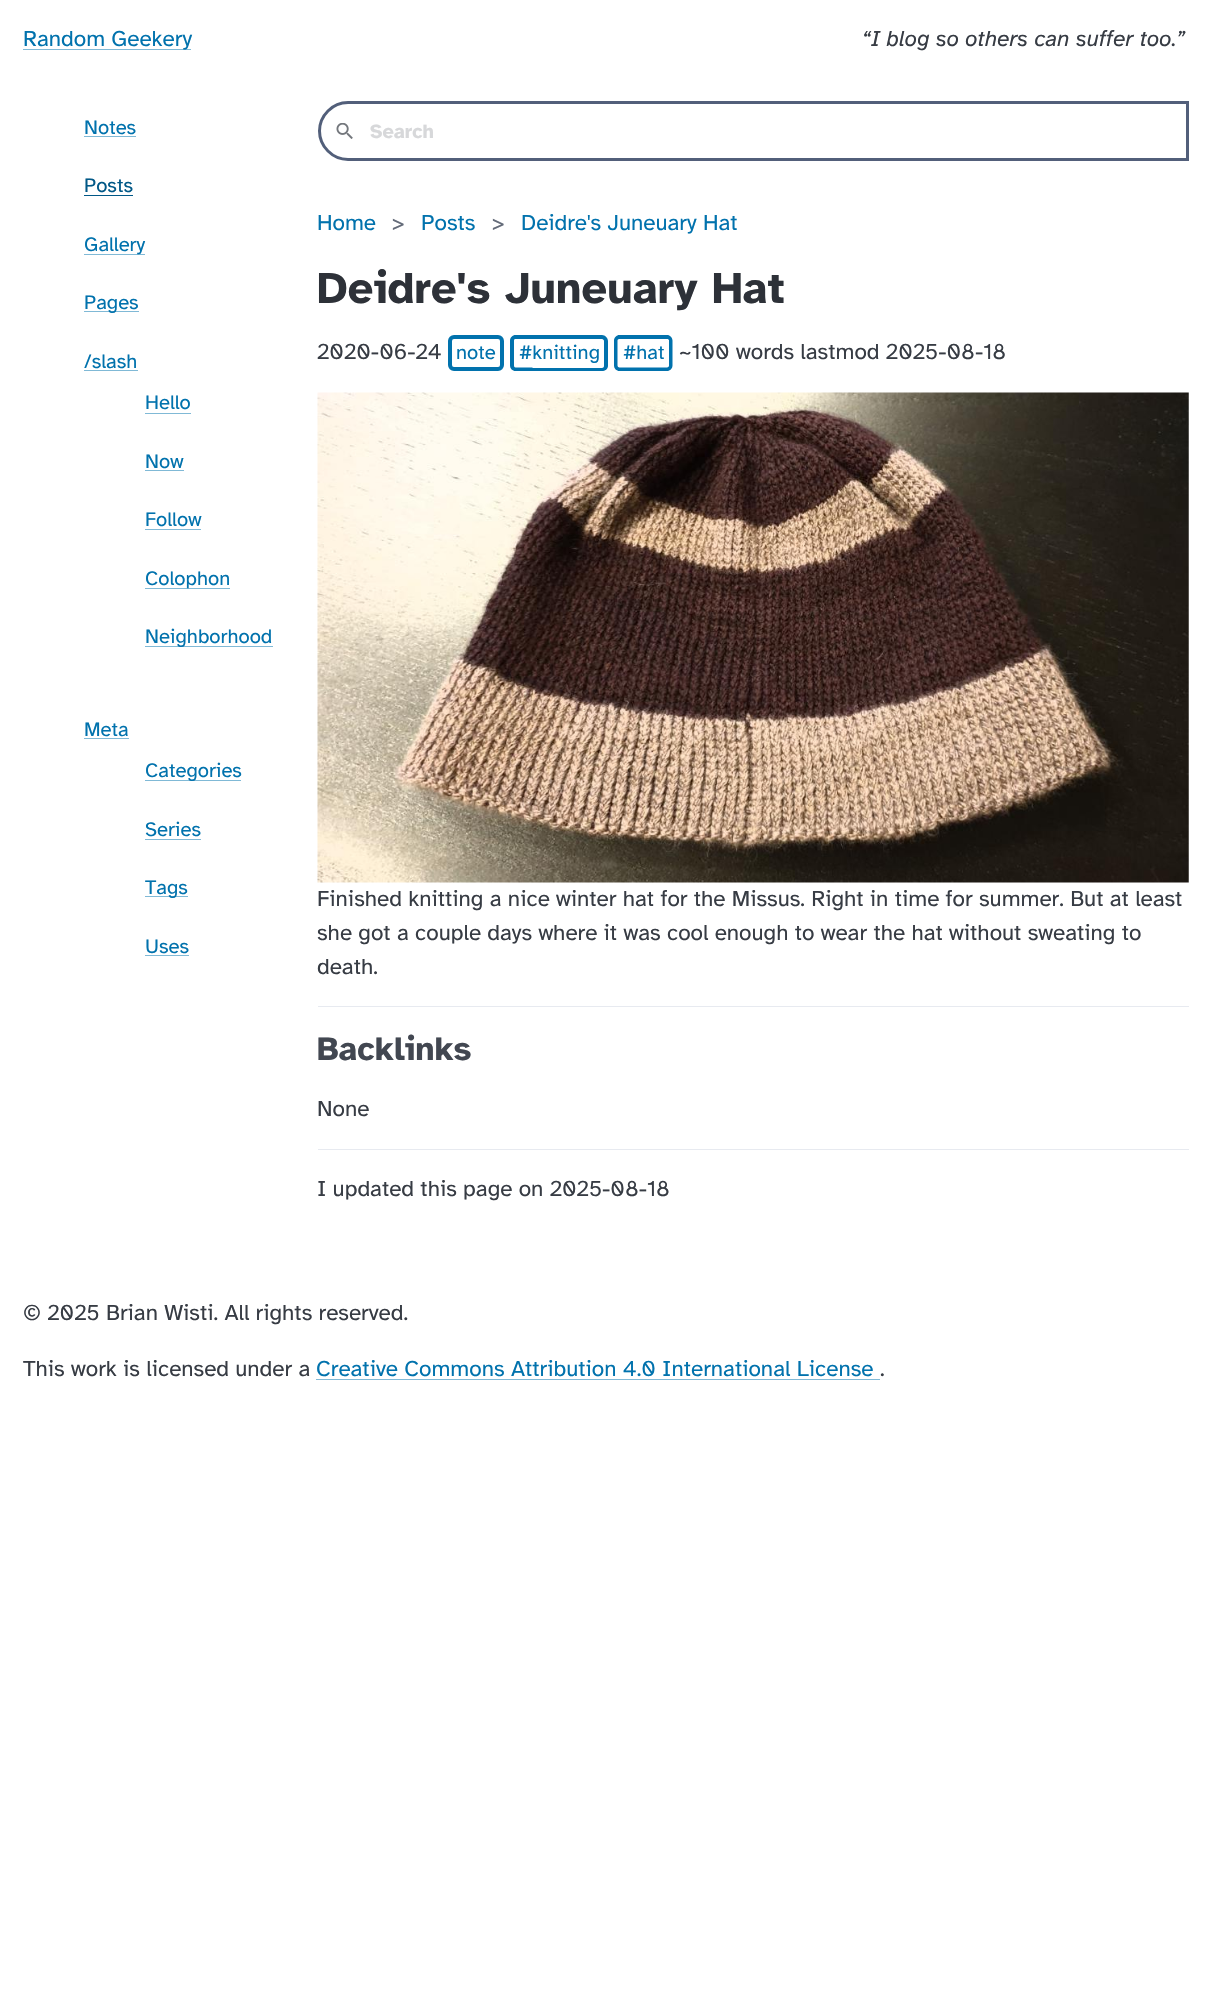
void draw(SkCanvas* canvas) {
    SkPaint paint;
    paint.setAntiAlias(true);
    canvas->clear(0xFFFFFFFF);
    paint.setColor(0xFF80B9D6);
    canvas->drawRect(SkRect::MakeXYWH(23, 49, 168, 1), paint);
    SkFont font1(fontMgr->matchFamilyStyle("Atkinson Hyperlegible", SkFontStyle::Normal()), 22.5f);
    font1.setSubpixel(true);
    paint.setColor(0xFF0172AD);
    canvas->drawString("Random Geekery", 23, 46, font1, paint);
    SkFont font2(fontMgr->matchFamilyStyle("Atkinson Hyperlegible", SkFontStyle::Italic()), 22.5f);
    font2.setSubpixel(true);
    paint.setColor(0xFF373C44);
    canvas->drawString("“I blog so others can suffer too.”", 862, 46, font2, paint);
    SkFont font3(fontMgr->matchFamilyStyle("Atkinson Hyperlegible", SkFontStyle::Normal()), 20.25f);
    font3.setSubpixel(true);
    paint.setColor(0xFF0172AD);
    canvas->drawString("Notes", 84, 134, font3, paint);
    paint.setColor(0xFF80B9D6);
    canvas->drawRect(SkRect::MakeXYWH(84, 136, 52, 1), paint);
    paint.setColor(0xFF015887);
    canvas->drawString("Posts", 84, 192, font3, paint);
    canvas->drawRect(SkRect::MakeXYWH(84, 195, 49, 1), paint);
    paint.setColor(0xFF80B9D6);
    canvas->drawRect(SkRect::MakeXYWH(84, 254, 61, 1), paint);
    paint.setColor(0xFF0172AD);
    canvas->drawString("Gallery", 84, 251, font3, paint);
    paint.setColor(0xFF80B9D6);
    canvas->drawRect(SkRect::MakeXYWH(84, 311, 55, 1), paint);
    paint.setColor(0xFF0172AD);
    canvas->drawString("Pages", 84, 309, font3, paint);
    canvas->drawString("/slash", 84, 368, font3, paint);
    paint.setColor(0xFF80B9D6);
    canvas->drawRect(SkRect::MakeXYWH(84, 370, 54, 1), paint);
    paint.setColor(0xFF0172AD);
    canvas->drawString("Hello", 145, 409, font3, paint);
    paint.setColor(0xFF80B9D6);
    canvas->drawRect(SkRect::MakeXYWH(145, 413, 46, 1), paint);
    paint.setColor(0xFF0172AD);
    canvas->drawString("Now", 145, 468, font3, paint);
    paint.setColor(0xFF80B9D6);
    canvas->drawRect(SkRect::MakeXYWH(145, 470, 39, 1), paint);
    paint.setColor(0xFF0172AD);
    canvas->drawString("Follow", 145, 526, font3, paint);
    paint.setColor(0xFF80B9D6);
    canvas->drawRect(SkRect::MakeXYWH(145, 529, 56, 1), paint);
    canvas->drawRect(SkRect::MakeXYWH(145, 588, 85, 1), paint);
    paint.setColor(0xFF0172AD);
    canvas->drawString("Colophon", 145, 585, font3, paint);
    paint.setColor(0xFF80B9D6);
    canvas->drawRect(SkRect::MakeXYWH(145, 646, 128, 1), paint);
    paint.setColor(0xFF0172AD);
    canvas->drawString("Neighborhood", 145, 643, font3, paint);
    canvas->drawString("Meta", 84, 736, font3, paint);
    paint.setColor(0xFF80B9D6);
    canvas->drawRect(SkRect::MakeXYWH(84, 738, 45, 1), paint);
    canvas->drawRect(SkRect::MakeXYWH(145, 780, 96, 1), paint);
    paint.setColor(0xFF0172AD);
    canvas->drawString("Categories", 145, 777, font3, paint);
    canvas->drawString("Series", 145, 836, font3, paint);
    paint.setColor(0xFF80B9D6);
    canvas->drawRect(SkRect::MakeXYWH(145, 839, 56, 1), paint);
    canvas->drawRect(SkRect::MakeXYWH(145, 896, 43, 1), paint);
    paint.setColor(0xFF0172AD);
    canvas->drawString("Tags", 145, 894, font3, paint);
    canvas->drawString("Uses", 145, 953, font3, paint);
    paint.setColor(0xFF80B9D6);
    canvas->drawRect(SkRect::MakeXYWH(145, 955, 44, 1), paint);
    paint.setStyle(SkPaint::kStroke_Style);
    paint.setStrokeWidth(3);
    paint.setColor(0xFF525F7A);
    canvas->drawPath(SkPathBuilder().moveTo(348, 102.5f).lineTo(1187.5f, 102.5f).lineTo(1187.5f, 159.5f).lineTo(348, 159.5f).cubicTo(332.5f, 159.5f, 319.5f, 146.5f, 319.5f, 131).cubicTo(319.5f, 115.5f, 332.5f, 102.5f, 348, 102.5f).close().detach(), paint);
    canvas->drawImageRect(SkImages::DeferredFromEncodedData(SkData::MakeFromFileName("img1.png")), SkRect::MakeXYWH(336, 123, 17, 16), SkSamplingOptions());
    SkFont font4(fontMgr->matchFamilyStyle("Atkinson Hyperlegible", SkFontStyle::Bold()), 20);
    font4.setSubpixel(true);
    paint.setStyle(SkPaint::kFill_Style);
    paint.setColor(0xFFD7D8DA);
    canvas->drawString("Search", 370, 138, font4, paint);
    paint.setColor(0xFF0172AD);
    canvas->drawString("Home", 317, 230, font1, paint);
    paint.setColor(0xFF646B79);
    canvas->drawString(">", 392, 230, font1, paint);
    paint.setColor(0xFF0172AD);
    canvas->drawString("Posts", 421, 230, font1, paint);
    paint.setColor(0xFF646B79);
    canvas->drawString(">", 492, 230, font1, paint);
    paint.setColor(0xFF0172AD);
    canvas->drawString("Deidre's Juneuary Hat", 521, 230, font1, paint);
    SkFont font5(fontMgr->matchFamilyStyle("Atkinson Hyperlegible", SkFontStyle::Bold()), 45);
    font5.setSubpixel(true);
    paint.setColor(0xFF2D3138);
    canvas->drawString("Deidre's Juneuary Hat", 317, 303, font5, paint);
    paint.setColor(0xFF373C44);
    canvas->drawString("2020-06-24", 317, 359, font1, paint);
    paint.setStyle(SkPaint::kStroke_Style);
    paint.setStrokeWidth(4);
    paint.setColor(0xFF0172AD);
    canvas->drawRoundRect(SkRect::MakeXYWH(450, 337, 52, 32), 4, 4, paint);
    paint.setStyle(SkPaint::kFill_Style);
    canvas->drawString("note", 456, 359, font3, paint);
    canvas->drawPath(SkPathBuilder(SkPathFillType::kEvenOdd).moveTo(515.5f, 335).lineTo(532.5f, 335).lineTo(532.5f, 371).lineTo(515.5f, 371).cubicTo(512.5f, 371, 510, 368.5f, 510, 365.5f).lineTo(510, 340.5f).cubicTo(510, 337.5f, 512.5f, 335, 515.5f, 335).close().moveTo(515.5f, 339).lineTo(532.5f, 339).lineTo(532.5f, 367.5f).lineTo(515.5f, 367.5f).cubicTo(514.5f, 367.5f, 514, 366.5f, 514, 365.5f).lineTo(514, 340.5f).cubicTo(514, 339.5f, 514.5f, 339, 515.5f, 339).close().detach(), paint);
    canvas->drawPath(SkPathBuilder(SkPathFillType::kEvenOdd).moveTo(532, 335).lineTo(602, 335).cubicTo(605, 335, 608, 338, 608, 341).lineTo(608, 366).cubicTo(608, 369, 605, 371, 602, 371).lineTo(532, 371).close().moveTo(532, 339).lineTo(602, 339).cubicTo(603, 339, 604, 340, 604, 341).lineTo(604, 366).cubicTo(604, 367, 603, 368, 602, 368).lineTo(532, 368).close().detach(), paint);
    canvas->drawString("#knitting", 519, 359, font3, paint);
    canvas->drawPath(SkPathBuilder(SkPathFillType::kEvenOdd).moveTo(619.5f, 335).lineTo(636, 335).lineTo(636, 371).lineTo(619.5f, 371).cubicTo(616.5f, 371, 614, 368.5f, 614, 365.5f).lineTo(614, 340.5f).cubicTo(614, 337.5f, 616.5f, 335, 619.5f, 335).close().moveTo(619.5f, 339).lineTo(636, 339).lineTo(636, 367.5f).lineTo(619.5f, 367.5f).cubicTo(618.5f, 367.5f, 617.5f, 366.5f, 617.5f, 365.5f).lineTo(617.5f, 340.5f).cubicTo(617.5f, 339.5f, 618.5f, 339, 619.5f, 339).close().moveTo(636, 335).lineTo(667, 335).cubicTo(670, 335, 672.5f, 337.5f, 672.5f, 340.5f).lineTo(672.5f, 365.5f).cubicTo(672.5f, 368.5f, 670, 371, 667, 371).lineTo(636, 371).close().moveTo(636, 339).lineTo(667, 339).cubicTo(668, 339, 669, 339.5f, 669, 340.5f).lineTo(669, 365.5f).cubicTo(669, 366.5f, 668, 367.5f, 667, 367.5f).lineTo(636, 367.5f).close().detach(), paint);
    canvas->drawString("#hat", 623, 359, font3, paint);
    paint.setColor(0xFF373C44);
    canvas->drawString("~100 words lastmod 2025-08-18", 679, 359, font1, paint);
    canvas->drawImageRect(SkImages::DeferredFromEncodedData(SkData::MakeFromFileName("img2.png")), SkRect::MakeXYWH(317, 392, 872, 491), SkSamplingOptions());
    canvas->drawString("Finished knitting a nice winter hat for the Missus. Right in time for summer. But at least", 317, 906, font1, paint);
    canvas->drawString("she got a couple days where it was cool enough to wear the hat without sweating to", 317, 940, font1, paint);
    canvas->drawString("death.", 317, 974, font1, paint);
    paint.setColor(0xFFE7EAF0);
    canvas->drawRect(SkRect::MakeXYWH(318, 1006, 871, 1), paint);
    SkFont font6(fontMgr->matchFamilyStyle("Atkinson Hyperlegible", SkFontStyle::Bold()), 33.75f);
    font6.setSubpixel(true);
    paint.setColor(0xFF424751);
    canvas->drawString("Backlinks", 317, 1060, font6, paint);
    paint.setColor(0xFF373C44);
    canvas->drawString("None", 317, 1116, font1, paint);
    paint.setColor(0xFFE7EAF0);
    canvas->drawRect(SkRect::MakeXYWH(318, 1149, 871, 1), paint);
    paint.setColor(0xFF373C44);
    canvas->drawString("I updated this page on 2025-08-18", 317, 1196, font1, paint);
    canvas->drawString("© 2025 Brian Wisti. All rights reserved.", 23, 1320, font1, paint);
    canvas->drawString("This work is licensed under a", 23, 1376, font1, paint);
    paint.setColor(0xFF0172AD);
    canvas->drawString("Creative Commons Attribution 4.0 International License", 316, 1376, font1, paint);
    paint.setColor(0xFF80B9D6);
    canvas->drawRect(SkRect::MakeXYWH(316, 1379, 564, 1), paint);
    paint.setColor(0xFF373C44);
    canvas->drawString(".", 880, 1376, font1, paint);
}
